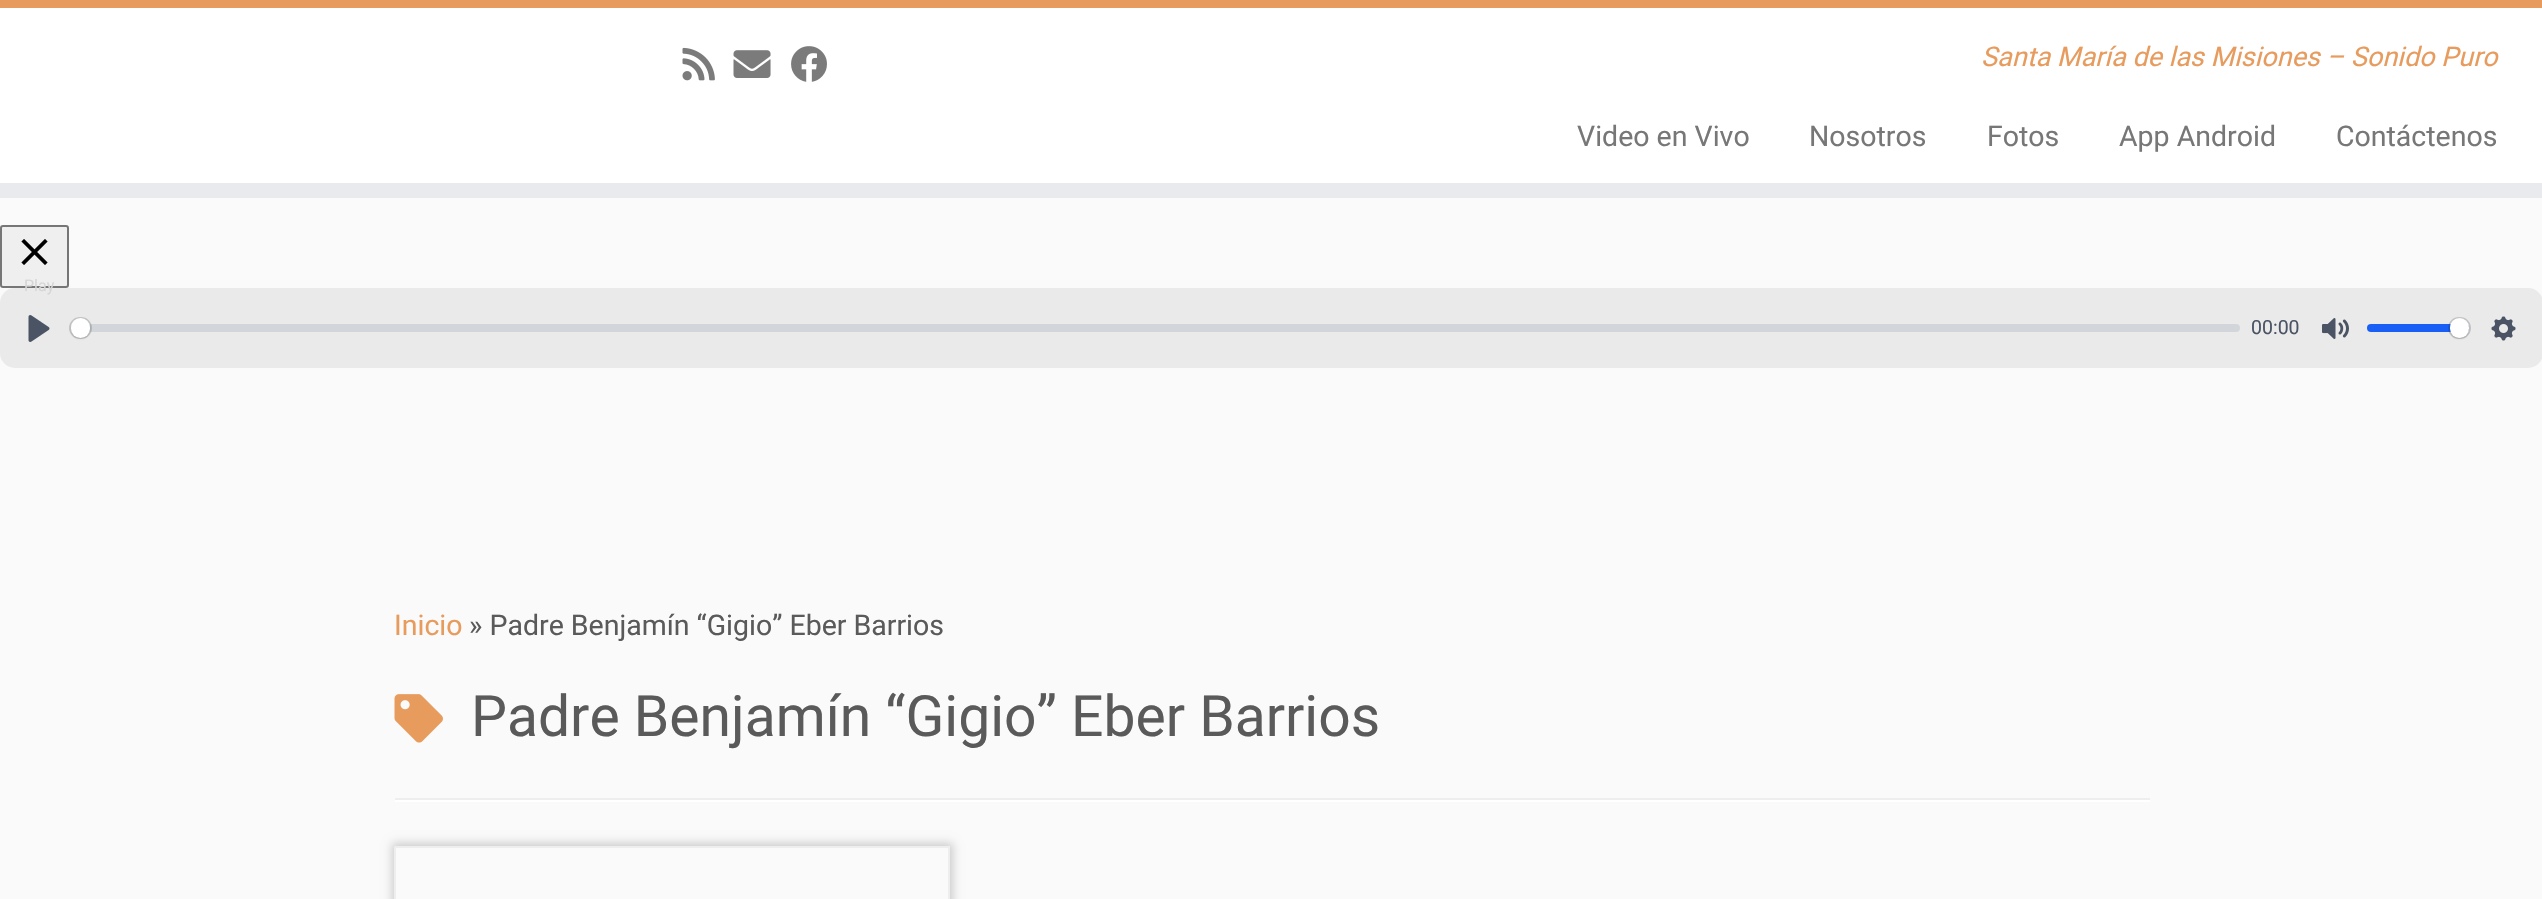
void draw(SkCanvas* canvas) {
    SkPaint paint;
    paint.setAntiAlias(true);
    canvas->clear(0xFFFAFAFA);
    paint.setColor(0xFFFFFFFF);
    canvas->drawRect(SkRect::MakeXYWH(0, 8, 2542, 175), paint);
    paint.setColor(0xFFE79B5D);
    canvas->drawRect(SkRect::MakeXYWH(0, 0, 2542, 8), paint);
    paint.setColor(0xFFE9EAEE);
    canvas->drawRect(SkRect::MakeXYWH(0, 183, 2542, 15), paint);
    canvas->drawImageRect(SkImages::DeferredFromEncodedData(SkData::MakeFromFileName("img1.png")), SkRect::MakeXYWH(682, 47, 33, 34), SkSamplingOptions());
    canvas->drawImageRect(SkImages::DeferredFromEncodedData(SkData::MakeFromFileName("img2.png")), SkRect::MakeXYWH(733, 50, 38, 28), SkSamplingOptions());
    canvas->drawImageRect(SkImages::DeferredFromEncodedData(SkData::MakeFromFileName("img3.png")), SkRect::MakeXYWH(791, 46, 36, 36), SkSamplingOptions());
    SkFont font1(fontMgr->matchFamilyStyle("Roboto", SkFontStyle::Italic()), 27);
    font1.setSubpixel(true);
    paint.setColor(0xFFE79B5D);
    canvas->drawString("Santa María de las Misiones – Sonido Puro", 1981, 66, font1, paint);
    SkFont font2(fontMgr->matchFamilyStyle("Roboto", SkFontStyle::Normal()), 28.5f);
    font2.setSubpixel(true);
    paint.setColor(0xFF777777);
    canvas->drawString("Video en Vivo", 1577, 146, font2, paint);
    canvas->drawString("Nosotros", 1809, 146, font2, paint);
    canvas->drawString("Fotos", 1987, 146, font2, paint);
    canvas->drawString("App Android", 2119, 146, font2, paint);
    canvas->drawString("Contáctenos", 2336, 146, font2, paint);
    paint.setColor(0xFFE79B5D);
    canvas->drawString("Inicio", 394, 635, font2, paint);
    paint.setColor(0xFF5A5A5A);
    canvas->drawString("» Padre Benjamín “Gigio” Eber Barrios", 469, 635, font2, paint);
    canvas->drawImageRect(SkImages::DeferredFromEncodedData(SkData::MakeFromFileName("img4.png")), SkRect::MakeXYWH(394, 694, 49, 49), SkSamplingOptions());
    SkFont font3(fontMgr->matchFamilyStyle("Roboto", SkFontStyle::Normal()), 57);
    font3.setSubpixel(true);
    canvas->drawString("Padre Benjamín “Gigio” Eber Barrios", 471, 736, font3, paint);
    paint.setColor(0xFFEEEEEE);
    canvas->drawRect(SkRect::MakeXYWH(395, 798, 1755, 2), paint);
    paint.setColor(0xFFFFFFFF);
    canvas->drawRect(SkRect::MakeXYWH(395, 800, 1755, 2), paint);
    canvas->save();
    canvas->clipPath(SkPathBuilder(SkPathFillType::kEvenOdd).moveTo(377, 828).lineTo(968, 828).lineTo(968, 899).lineTo(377, 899).close().moveTo(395, 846).lineTo(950, 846).lineTo(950, 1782).lineTo(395, 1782).close().detach(), true);
    paint.setColor(0xFFCCCCCC);
    paint.setMaskFilter(SkMaskFilter::MakeBlur(kNormal_SkBlurStyle, 4.5f));
    canvas->drawRect(SkRect::MakeXYWH(392, 843, 561, 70), paint);
    paint.setMaskFilter(nullptr);
    canvas->restore();
    paint.setColor(0xFFEEEEEE);
    canvas->drawRect(SkRect::MakeXYWH(395, 846, 555, 2), paint);
    canvas->drawPath(SkPathBuilder().moveTo(950, 846).lineTo(950, 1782).lineTo(948, 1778).lineTo(948, 848).close().detach(), paint);
    canvas->drawPath(SkPathBuilder().moveTo(394, 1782).lineTo(394, 846).lineTo(396, 848).lineTo(396, 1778).close().detach(), paint);
    paint.setColor(0xFFEFEFEF);
    canvas->drawRoundRect(SkRect::MakeXYWH(1, 226, 67, 61), 2, 2, paint);
    paint.setStyle(SkPaint::kStroke_Style);
    paint.setStrokeWidth(2);
    paint.setColor(0xFF767676);
    canvas->drawRoundRect(SkRect::MakeXYWH(1, 226, 67, 61), 2, 2, paint);
    canvas->drawImageRect(SkImages::DeferredFromEncodedData(SkData::MakeFromFileName("img5.png")), SkRect::MakeXYWH(21, 239, 27, 26), SkSamplingOptions());
    paint.setStyle(SkPaint::kFill_Style);
    paint.setColor(0xFFEAEAEA);
    canvas->drawRoundRect(SkRect::MakeXYWH(0, 288, 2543, 80), 15, 15, paint);
    SkFont font4(fontMgr->matchFamilyStyle("Roboto", SkFontStyle::Normal()), 16);
    font4.setSubpixel(true);
    paint.setColor(0xFFD6D6D6);
    canvas->drawString("Play", 24, 291, font4, paint);
    canvas->drawImageRect(SkImages::DeferredFromEncodedData(SkData::MakeFromFileName("img6.png")), SkRect::MakeXYWH(28, 315, 22, 27), SkSamplingOptions());
    paint.setColor(0x99C1C8D1);
    canvas->drawRoundRect(SkRect::MakeXYWH(71, 324, 2169, 8), 4, 4, paint);
    paint.setStyle(SkPaint::kStroke_Style);
    paint.setColor(0x3323282F);
    canvas->drawRoundRect(SkRect::MakeXYWH(70, 318, 21, 20), 10, 10, paint);
    paint.setStyle(SkPaint::kFill_Style);
    paint.setColor(0x2623282F);
    paint.setMaskFilter(SkMaskFilter::MakeBlur(kNormal_SkBlurStyle, 1));
    canvas->drawRoundRect(SkRect::MakeXYWH(71, 320, 19, 19), 9.5f, 9.5f, paint);
    paint.setMaskFilter(nullptr);
    paint.setColor(0xFFFFFFFF);
    canvas->drawRoundRect(SkRect::MakeXYWH(71, 318, 19, 20), 9.5f, 9.5f, paint);
    SkFont font5(fontMgr->matchFamilyStyle("Roboto", SkFontStyle::Normal()), 19.5f);
    font5.setSubpixel(true);
    paint.setColor(0xFF4A5464);
    canvas->drawString("00:00", 2251, 334, font5, paint);
    canvas->drawImageRect(SkImages::DeferredFromEncodedData(SkData::MakeFromFileName("img7.png")), SkRect::MakeXYWH(2322, 318, 27, 21), SkSamplingOptions());
    paint.setColor(0xFF195FF5);
    canvas->drawRoundRect(SkRect::MakeXYWH(2367, 324, 102, 8), 4, 4, paint);
    paint.setStyle(SkPaint::kStroke_Style);
    paint.setColor(0x3323282F);
    canvas->drawRoundRect(SkRect::MakeXYWH(2449, 318, 21, 20), 10, 10, paint);
    paint.setStyle(SkPaint::kFill_Style);
    paint.setColor(0x2623282F);
    paint.setMaskFilter(SkMaskFilter::MakeBlur(kNormal_SkBlurStyle, 1));
    canvas->drawRoundRect(SkRect::MakeXYWH(2450, 320, 19, 19), 9.5f, 9.5f, paint);
    paint.setMaskFilter(nullptr);
    paint.setColor(0xFFFFFFFF);
    canvas->drawRoundRect(SkRect::MakeXYWH(2450, 318, 19, 20), 9.5f, 9.5f, paint);
    canvas->drawImageRect(SkImages::DeferredFromEncodedData(SkData::MakeFromFileName("img8.png")), SkRect::MakeXYWH(2491, 316, 25, 25), SkSamplingOptions());
}
